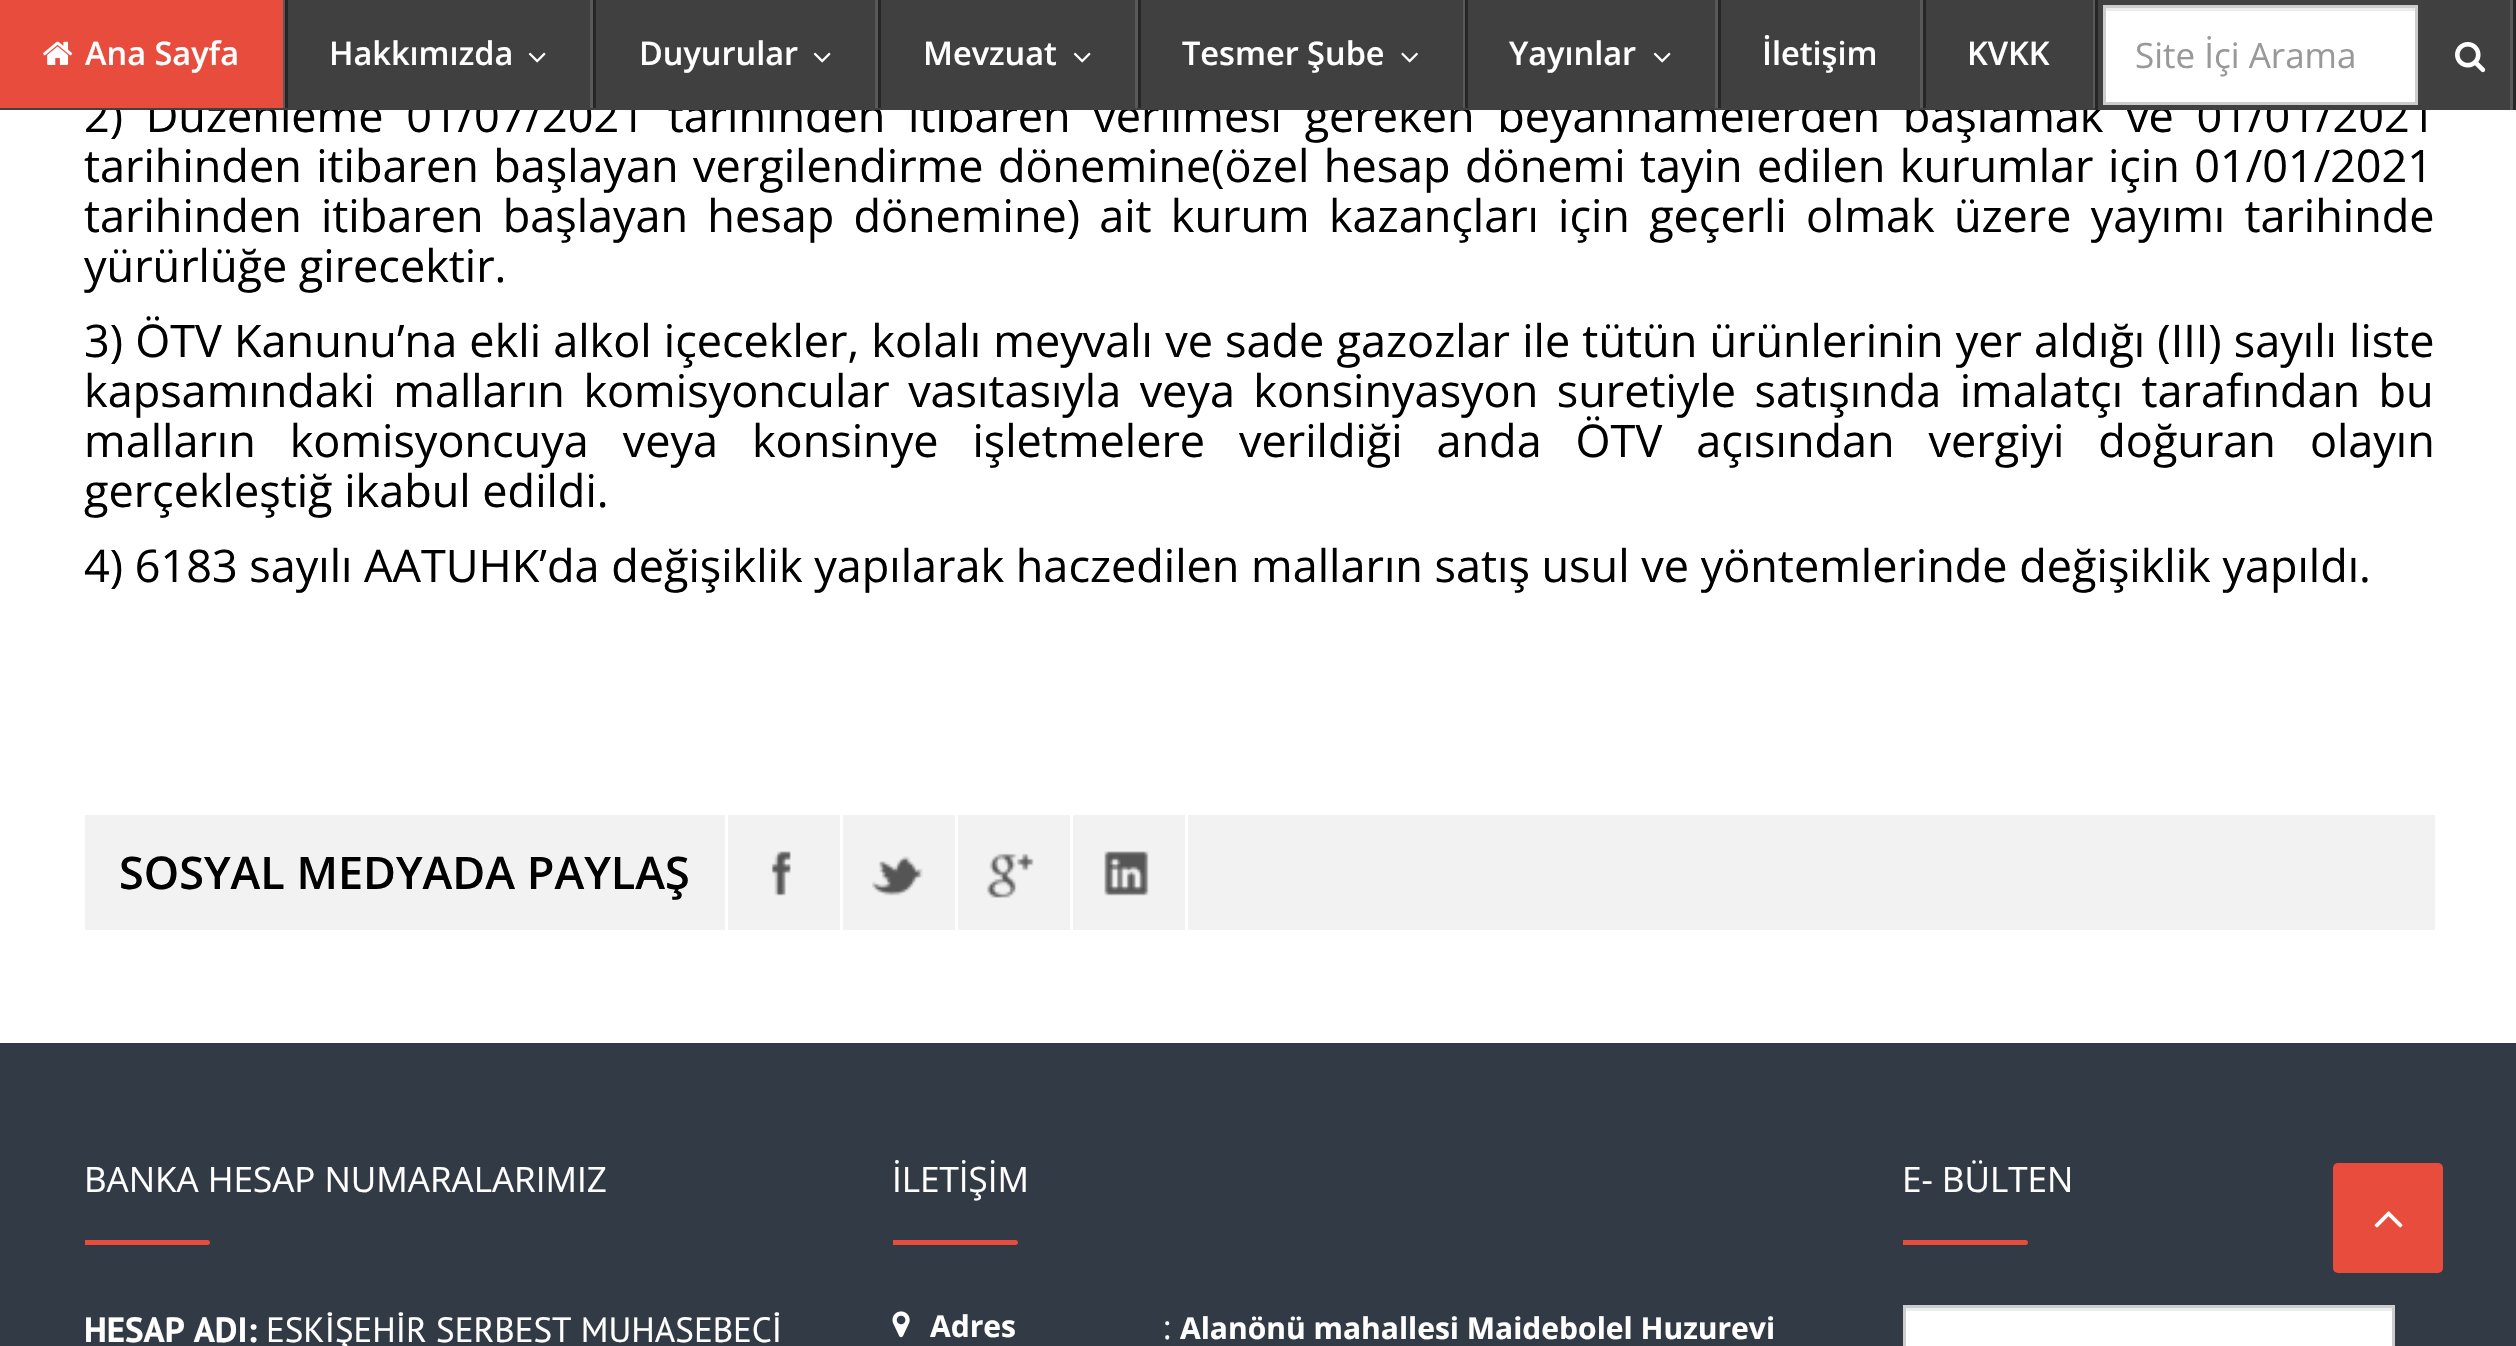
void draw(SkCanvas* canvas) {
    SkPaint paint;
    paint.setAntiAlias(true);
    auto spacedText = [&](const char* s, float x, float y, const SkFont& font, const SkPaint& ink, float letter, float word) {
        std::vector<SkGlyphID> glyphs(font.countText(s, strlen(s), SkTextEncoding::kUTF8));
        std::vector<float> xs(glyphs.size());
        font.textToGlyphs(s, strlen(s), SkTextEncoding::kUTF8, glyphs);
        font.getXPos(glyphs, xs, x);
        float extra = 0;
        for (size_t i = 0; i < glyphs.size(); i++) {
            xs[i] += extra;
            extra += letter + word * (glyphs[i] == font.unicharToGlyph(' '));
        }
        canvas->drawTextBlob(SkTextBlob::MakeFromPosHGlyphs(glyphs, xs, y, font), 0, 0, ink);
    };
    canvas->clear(0xFFFFFFFF);
    SkFont font1(fontMgr->matchFamilyStyle("Open Sans", SkFontStyle::Normal()), 45);
    font1.setSubpixel(true);
    paint.setColor(0xFF000000);
    spacedText("2) Düzenleme 01/07/2021 tarihinden itibaren verilmesi gereken beyannamelerden başlamak ve 01/01/2021", 84, 132, font1, paint, 0, 11);
    paint.setColor(0xFF414040);
    canvas->drawRect(SkRect::MakeXYWH(0, 0, 2510, 110), paint);
    paint.setColor(0xFF262626);
    canvas->drawRect(SkRect::MakeXYWH(2513, 0, 3, 110), paint);
    paint.setColor(0xFF595959);
    canvas->drawRect(SkRect::MakeXYWH(283, 0, 2, 108), paint);
    paint.setColor(0xFFE74C3C);
    canvas->drawRect(SkRect::MakeXYWH(0, 0, 283, 108), paint);
    canvas->drawImageRect(SkImages::DeferredFromEncodedData(SkData::MakeFromFileName("img1.png")), SkRect::MakeXYWH(43, 41, 30, 24), SkSamplingOptions());
    SkFont font2(fontMgr->matchFamilyStyle("Open Sans", SkFontStyle(600, SkFontStyle::kNormal_Width, SkFontStyle::kUpright_Slant)), 32.5f);
    font2.setSubpixel(true);
    paint.setColor(0xFFFFFFFF);
    canvas->drawString("Ana Sayfa", 85, 65, font2, paint);
    paint.setColor(0xFF595959);
    canvas->drawRect(SkRect::MakeXYWH(590, 0, 3, 108), paint);
    paint.setColor(0xFF262626);
    canvas->drawRect(SkRect::MakeXYWH(285, 0, 3, 108), paint);
    paint.setColor(0xFFFFFFFF);
    canvas->drawString("Hakkımızda", 329, 65, font2, paint);
    canvas->drawImageRect(SkImages::DeferredFromEncodedData(SkData::MakeFromFileName("img2.png")), SkRect::MakeXYWH(528, 52, 18, 11), SkSamplingOptions());
    paint.setColor(0xFF595959);
    canvas->drawRect(SkRect::MakeXYWH(875, 0, 3, 108), paint);
    paint.setColor(0xFF262626);
    canvas->drawRect(SkRect::MakeXYWH(593, 0, 3, 108), paint);
    paint.setColor(0xFFFFFFFF);
    canvas->drawString("Duyurular", 639, 65, font2, paint);
    canvas->drawImageRect(SkImages::DeferredFromEncodedData(SkData::MakeFromFileName("img2.png")), SkRect::MakeXYWH(813, 52, 18, 11), SkSamplingOptions());
    paint.setColor(0xFF595959);
    canvas->drawRect(SkRect::MakeXYWH(1135, 0, 3, 108), paint);
    paint.setColor(0xFF262626);
    canvas->drawRect(SkRect::MakeXYWH(878, 0, 3, 108), paint);
    paint.setColor(0xFFFFFFFF);
    canvas->drawString("Mevzuat", 923, 65, font2, paint);
    canvas->drawImageRect(SkImages::DeferredFromEncodedData(SkData::MakeFromFileName("img2.png")), SkRect::MakeXYWH(1073, 52, 18, 11), SkSamplingOptions());
    paint.setColor(0xFF595959);
    canvas->drawRect(SkRect::MakeXYWH(1463, 0, 2, 108), paint);
    paint.setColor(0xFF262626);
    canvas->drawRect(SkRect::MakeXYWH(1138, 0, 3, 108), paint);
    paint.setColor(0xFFFFFFFF);
    canvas->drawString("Tesmer Şube", 1182, 65, font2, paint);
    canvas->drawImageRect(SkImages::DeferredFromEncodedData(SkData::MakeFromFileName("img3.png")), SkRect::MakeXYWH(1401, 52, 17, 11), SkSamplingOptions());
    paint.setColor(0xFF595959);
    canvas->drawRect(SkRect::MakeXYWH(1715, 0, 3, 108), paint);
    paint.setColor(0xFF262626);
    canvas->drawRect(SkRect::MakeXYWH(1465, 0, 3, 108), paint);
    paint.setColor(0xFFFFFFFF);
    canvas->drawString("Yayınlar", 1509, 65, font2, paint);
    canvas->drawImageRect(SkImages::DeferredFromEncodedData(SkData::MakeFromFileName("img2.png")), SkRect::MakeXYWH(1653, 52, 18, 11), SkSamplingOptions());
    paint.setColor(0xFF595959);
    canvas->drawRect(SkRect::MakeXYWH(1920, 0, 3, 108), paint);
    paint.setColor(0xFF262626);
    canvas->drawRect(SkRect::MakeXYWH(1718, 0, 3, 108), paint);
    paint.setColor(0xFFFFFFFF);
    canvas->drawString("İletişim", 1762, 65, font2, paint);
    paint.setColor(0xFF595959);
    canvas->drawRect(SkRect::MakeXYWH(2093, 0, 2, 108), paint);
    paint.setColor(0xFF262626);
    canvas->drawRect(SkRect::MakeXYWH(1923, 0, 3, 108), paint);
    paint.setColor(0xFFFFFFFF);
    canvas->drawString("KVKK", 1967, 65, font2, paint);
    paint.setColor(0xFF595959);
    canvas->drawRect(SkRect::MakeXYWH(2510, 0, 3, 110), paint);
    paint.setColor(0xFF262626);
    canvas->drawRect(SkRect::MakeXYWH(2095, 0, 3, 110), paint);
    paint.setColor(0xFFFFFFFF);
    canvas->drawRect(SkRect::MakeXYWH(2106, 11, 309, 91), paint);
    paint.setColor(0xFFECECEC);
    canvas->drawRect(SkRect::MakeXYWH(2105, 8, 310, 3), paint);
    paint.setStyle(SkPaint::kStroke_Style);
    paint.setStrokeWidth(3);
    paint.setColor(0xFFCCCCCC);
    canvas->drawRect(SkRect::MakeXYWH(2104.5f, 6.5f, 312, 97), paint);
    SkFont font3(fontMgr->matchFamilyStyle("Open Sans", SkFontStyle::Normal()), 35);
    font3.setSubpixel(true);
    paint.setStyle(SkPaint::kFill_Style);
    paint.setColor(0xFF999999);
    canvas->drawString("Site İçi Arama", 2135, 68, font3, paint);
    canvas->drawImageRect(SkImages::DeferredFromEncodedData(SkData::MakeFromFileName("img4.png")), SkRect::MakeXYWH(2455, 42, 31, 31), SkSamplingOptions());
    paint.setColor(0xFF000000);
    spacedText("tarihinden itibaren başlayan vergilendirme dönemine(özel hesap dönemi tayin edilen kurumlar için 01/01/2021", 84, 182, font1, paint, 0, 2.75f);
    spacedText("tarihinden itibaren başlayan hesap dönemine) ait kurum kazançları için geçerli olmak üzere yayımı tarihinde", 84, 232, font1, paint, 0, 7.5f);
    canvas->drawString("yürürlüğe girecektir.", 84, 282, font1, paint);
    spacedText("3) ÖTV Kanunu’na ekli alkol içecekler, kolalı meyvalı ve sade gazozlar ile tütün ürünlerinin yer aldığı (III) sayılı liste", 84, 357, font1, paint, 0, 0.5f);
    spacedText("kapsamındaki malların komisyoncular vasıtasıyla veya konsinyasyon suretiyle satışında imalatçı tarafından bu", 84, 407, font1, paint, 0, 6.75f);
    spacedText("malların komisyoncuya veya konsinye işletmelere verildiği anda ÖTV açısından vergiyi doğuran olayın", 84, 457, font1, paint, 0, 22.25f);
    canvas->drawString("gerçekleştiğ ikabul edildi.", 84, 507, font1, paint);
    canvas->drawString("4) 6183 sayılı AATUHK’da değişiklik yapılarak haczedilen malların satış usul ve yöntemlerinde değişiklik yapıldı.", 84, 582, font1, paint);
    paint.setColor(0xFFF2F2F2);
    canvas->drawRect(SkRect::MakeXYWH(85, 815, 2350, 115), paint);
    paint.setColor(0xFFFFFFFF);
    canvas->drawRect(SkRect::MakeXYWH(725, 815, 3, 115), paint);
    SkFont font4(fontMgr->matchFamilyStyle("Open Sans", SkFontStyle(600, SkFontStyle::kNormal_Width, SkFontStyle::kUpright_Slant)), 45);
    font4.setSubpixel(true);
    paint.setColor(0xFF000000);
    canvas->drawString("SOSYAL MEDYADA PAYLAŞ", 119, 889, font4, paint);
    paint.setColor(0xFFFFFFFF);
    canvas->drawRect(SkRect::MakeXYWH(840, 815, 3, 115), paint);
    canvas->drawImageRect(SkImages::DeferredFromEncodedData(SkData::MakeFromFileName("img5.png")), SkRect::MakeXYWH(771, 851, 20, 45), SkSamplingOptions());
    canvas->drawRect(SkRect::MakeXYWH(955, 815, 3, 115), paint);
    canvas->drawImageRect(SkImages::DeferredFromEncodedData(SkData::MakeFromFileName("img6.png")), SkRect::MakeXYWH(872, 856, 51, 40), SkSamplingOptions());
    canvas->drawRect(SkRect::MakeXYWH(1070, 815, 3, 115), paint);
    canvas->drawImageRect(SkImages::DeferredFromEncodedData(SkData::MakeFromFileName("img7.png")), SkRect::MakeXYWH(986, 853, 48, 45), SkSamplingOptions());
    canvas->drawRect(SkRect::MakeXYWH(1185, 815, 3, 115), paint);
    canvas->drawImageRect(SkImages::DeferredFromEncodedData(SkData::MakeFromFileName("img8.png")), SkRect::MakeXYWH(1104, 851, 45, 45), SkSamplingOptions());
    paint.setColor(0xFF323A45);
    canvas->drawRect(SkRect::MakeXYWH(0, 1043, 2516, 303), paint);
    paint.setColor(0xFFFFFFFF);
    canvas->drawString("BANKA HESAP NUMARALARIMIZ", 84, 1192, font3, paint);
    paint.setColor(0xFFE74C3C);
    canvas->drawPath(SkPathBuilder().moveTo(85, 1240).lineTo(207.5f, 1240).cubicTo(209, 1240, 210, 1241, 210, 1242.5f).cubicTo(210, 1244, 209, 1245, 207.5f, 1245).lineTo(85, 1245).close().detach(), paint);
    SkFont font5(fontMgr->matchFamilyStyle("PT Sans", SkFontStyle::Bold()), 35);
    font5.setSubpixel(true);
    paint.setColor(0xFFFFFFFF);
    canvas->drawString("HESAP ADI:", 84, 1342, font5, paint);
    SkFont font6(fontMgr->matchFamilyStyle("PT Sans", SkFontStyle::Normal()), 35);
    font6.setSubpixel(true);
    canvas->drawString("ESKİŞEHİR SERBEST MUHASEBECİ", 266, 1342, font6, paint);
    canvas->drawString("İLETİŞİM", 892, 1192, font3, paint);
    paint.setColor(0xFFE74C3C);
    canvas->drawPath(SkPathBuilder().moveTo(893, 1240).lineTo(1015.5f, 1240).cubicTo(1017, 1240, 1018, 1241, 1018, 1242.5f).cubicTo(1018, 1244, 1017, 1245, 1015.5f, 1245).lineTo(893, 1245).close().detach(), paint);
    canvas->drawImageRect(SkImages::DeferredFromEncodedData(SkData::MakeFromFileName("img9.png")), SkRect::MakeXYWH(892, 1311, 18, 27), SkSamplingOptions());
    SkFont font7(fontMgr->matchFamilyStyle("Open Sans", SkFontStyle::Bold()), 30);
    font7.setSubpixel(true);
    paint.setColor(0xFFFFFFFF);
    canvas->drawString("Adres", 930, 1337, font7, paint);
    SkFont font8(fontMgr->matchFamilyStyle("Open Sans", SkFontStyle::Normal()), 32.5f);
    font8.setSubpixel(true);
    canvas->drawString(":", 1163, 1339, font8, paint);
    canvas->drawString("Alanönü mahallesi Maidebolel Huzurevi", 1180, 1339, font7, paint);
    canvas->drawString("E- BÜLTEN", 1902, 1192, font3, paint);
    paint.setColor(0xFFE74C3C);
    canvas->drawPath(SkPathBuilder().moveTo(1903, 1240).lineTo(2025.5f, 1240).cubicTo(2027, 1240, 2028, 1241, 2028, 1242.5f).cubicTo(2028, 1244, 2027, 1245, 2025.5f, 1245).lineTo(1903, 1245).close().detach(), paint);
    paint.setColor(0xFFFFFFFF);
    canvas->drawRect(SkRect::MakeXYWH(1906, 1311, 486, 35), paint);
    paint.setColor(0xFFECECEC);
    canvas->drawRect(SkRect::MakeXYWH(1905, 1308, 488, 3), paint);
    paint.setStyle(SkPaint::kStroke_Style);
    paint.setColor(0xFFCCCCCC);
    canvas->drawRect(SkRect::MakeXYWH(1904.5f, 1306.5f, 489, 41), paint);
    paint.setStyle(SkPaint::kFill_Style);
    paint.setColor(0xFFE74C3C);
    canvas->drawRoundRect(SkRect::MakeXYWH(2333, 1163, 110, 110), 5, 5, paint);
    canvas->drawImageRect(SkImages::DeferredFromEncodedData(SkData::MakeFromFileName("img10.png")), SkRect::MakeXYWH(2374, 1211, 29, 17), SkSamplingOptions());
}
